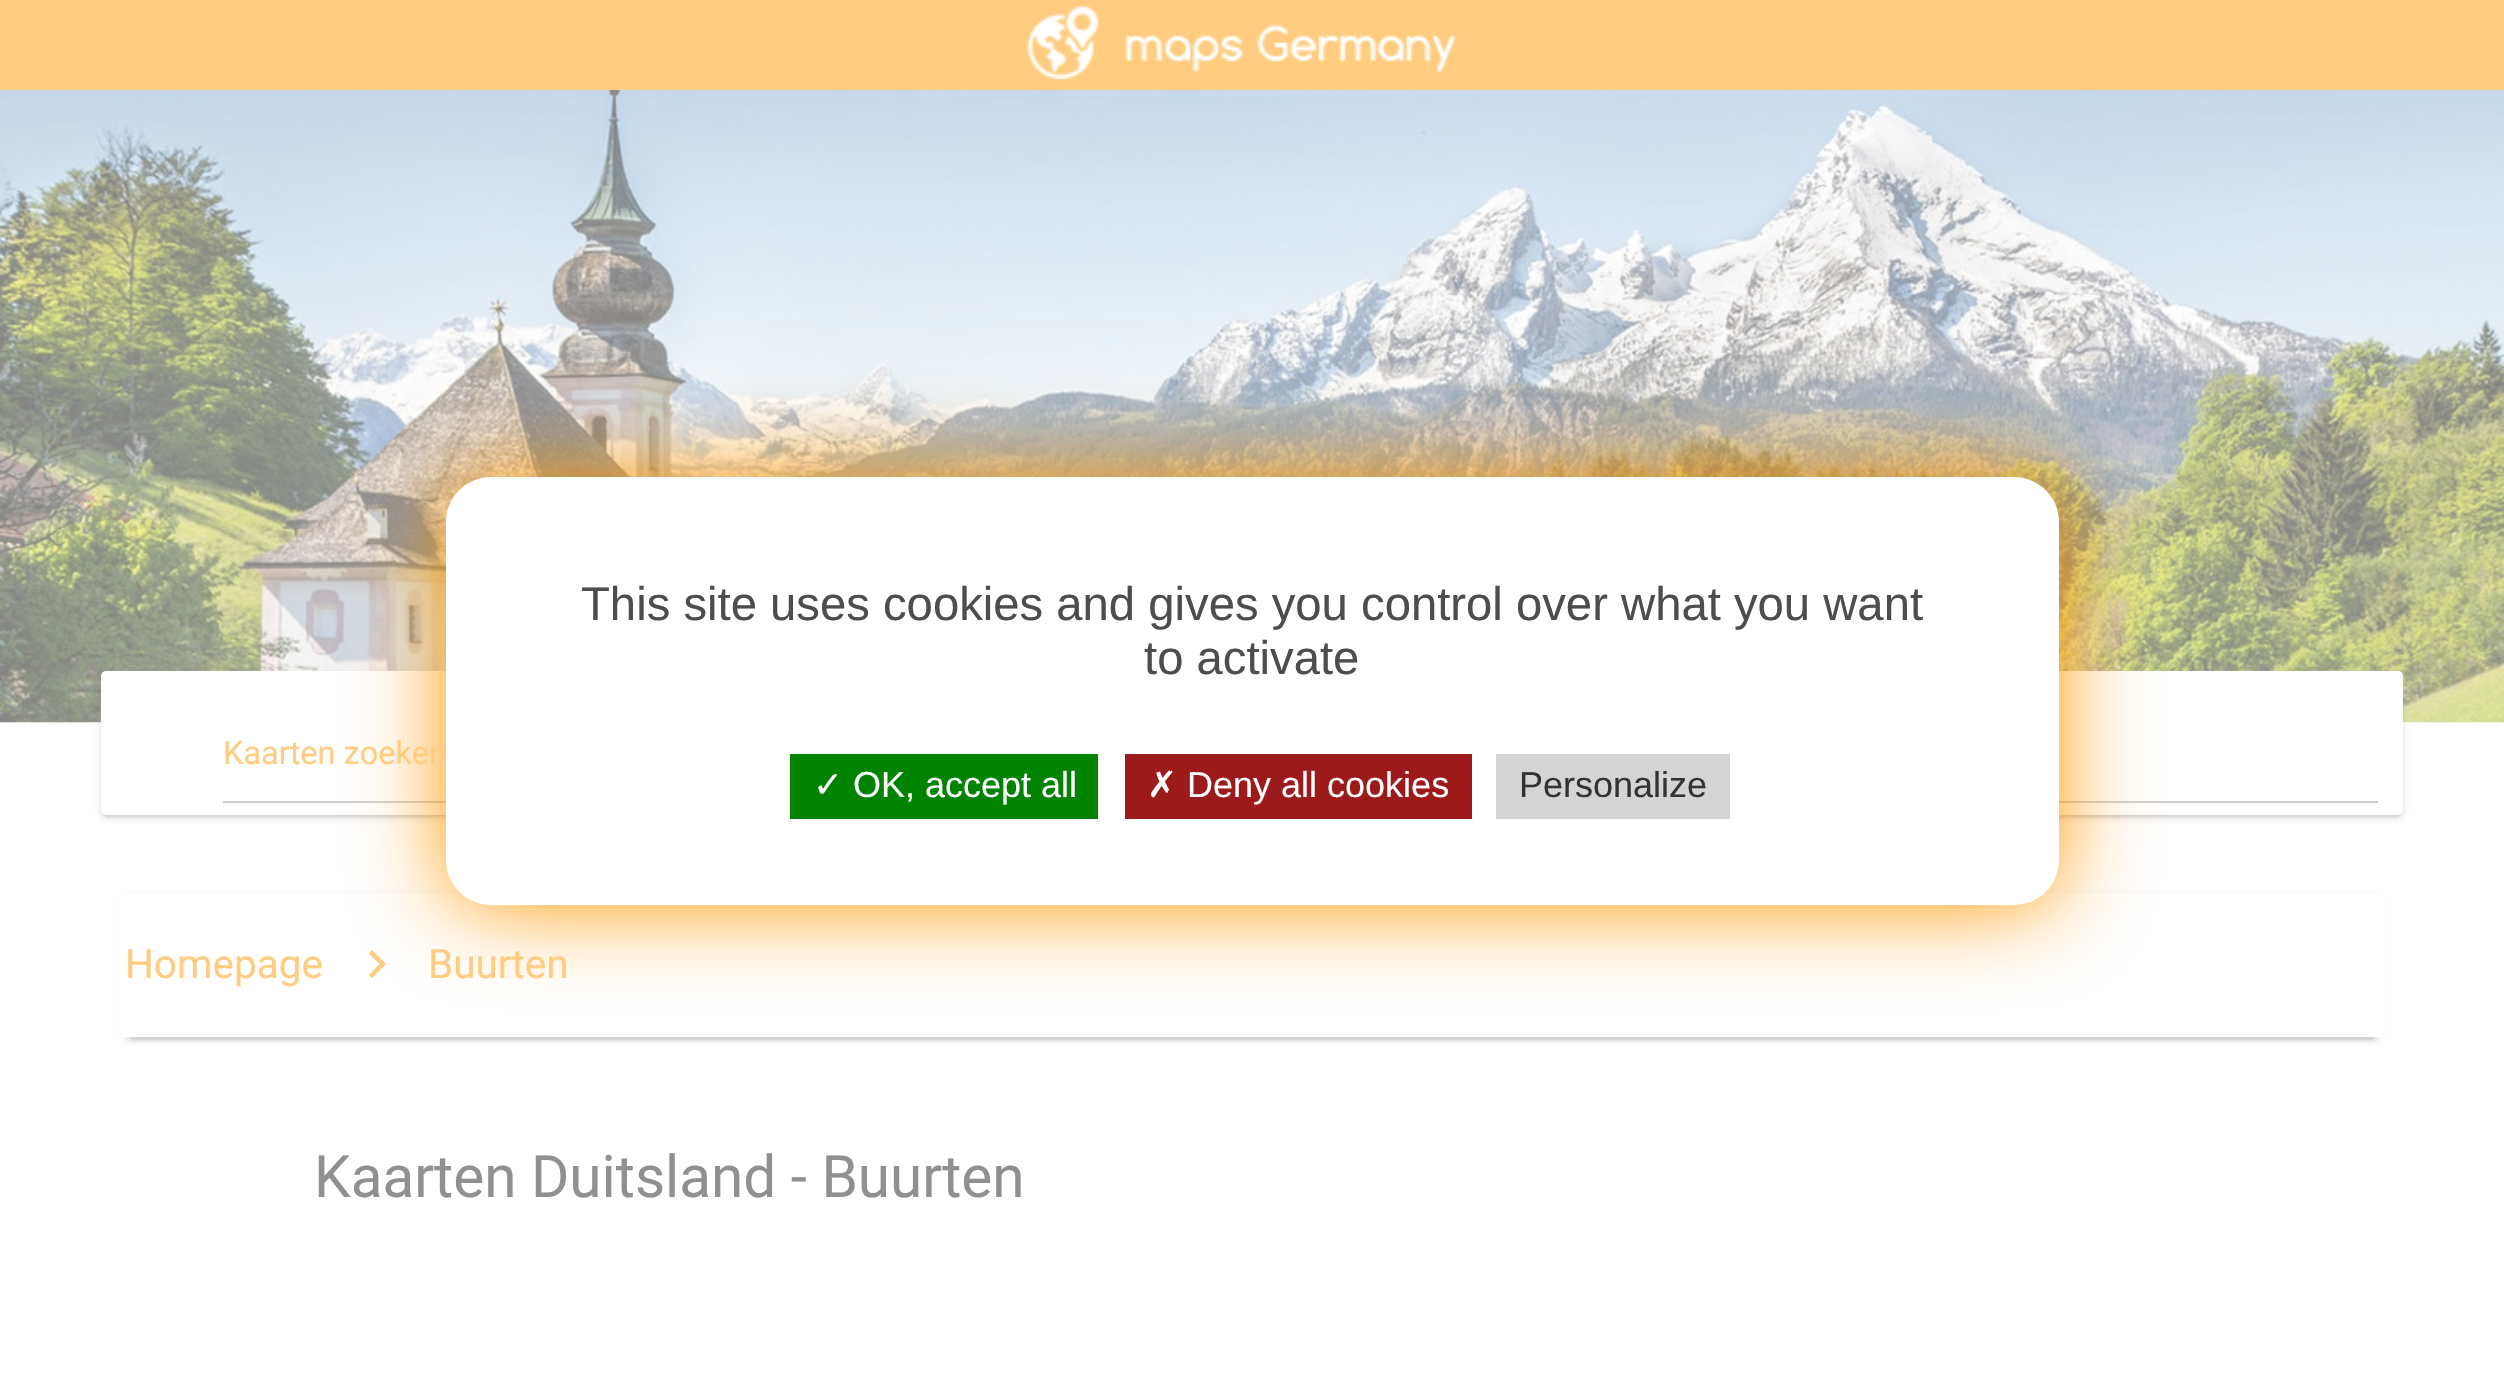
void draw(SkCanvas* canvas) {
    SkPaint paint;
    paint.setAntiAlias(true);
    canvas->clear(0xFFFFFFFF);
    paint.setColor(0xFFFFCC80);
    canvas->drawRect(SkRect::MakeXYWH(0, 0, 2504, 90), paint);
    canvas->drawImageRect(SkImages::DeferredFromEncodedData(SkData::MakeFromFileName("img1.png")), SkRect::MakeXYWH(1027, 6, 430, 74), SkSamplingOptions());
    canvas->drawImageRect(SkImages::DeferredFromEncodedData(SkData::MakeFromFileName("img2.png")), SkRect::MakeXYWH(0, 90, 2504, 633), SkSamplingOptions());
    paint.setColor(0x33808080);
    paint.setMaskFilter(SkMaskFilter::MakeBlur(kNormal_SkBlurStyle, 1));
    canvas->drawRect(SkRect::MakeXYWH(106, 682, 2293, 135), paint);
    paint.setMaskFilter(nullptr);
    paint.setColor(0x1F808080);
    paint.setMaskFilter(SkMaskFilter::MakeBlur(kNormal_SkBlurStyle, 5.5f));
    canvas->drawRoundRect(SkRect::MakeXYWH(101, 673, 2302, 144), 5, 5, paint);
    paint.setMaskFilter(nullptr);
    paint.setColor(0x24808080);
    paint.setMaskFilter(SkMaskFilter::MakeBlur(kNormal_SkBlurStyle, 2));
    canvas->drawRoundRect(SkRect::MakeXYWH(101, 675, 2302, 144), 5, 5, paint);
    paint.setMaskFilter(nullptr);
    paint.setColor(0xFFFFFFFF);
    canvas->drawRoundRect(SkRect::MakeXYWH(101, 671, 2302, 144), 5, 5, paint);
    paint.setColor(0xFFCFCFCF);
    canvas->drawRect(SkRect::MakeXYWH(223, 801, 2155, 2), paint);
    paint.setColor(0x33808080);
    paint.setMaskFilter(SkMaskFilter::MakeBlur(kNormal_SkBlurStyle, 1));
    canvas->drawRect(SkRect::MakeXYWH(131, 905, 2243, 135), paint);
    paint.setMaskFilter(nullptr);
    paint.setColor(0x1F808080);
    paint.setMaskFilter(SkMaskFilter::MakeBlur(kNormal_SkBlurStyle, 5.5f));
    canvas->drawRect(SkRect::MakeXYWH(126, 896, 2252, 144), paint);
    paint.setMaskFilter(nullptr);
    paint.setColor(0x24808080);
    paint.setMaskFilter(SkMaskFilter::MakeBlur(kNormal_SkBlurStyle, 2));
    canvas->drawRect(SkRect::MakeXYWH(126, 898, 2252, 144), paint);
    paint.setMaskFilter(nullptr);
    paint.setColor(0xFFFFFFFF);
    canvas->drawRect(SkRect::MakeXYWH(121, 893, 2262, 144), paint);
    paint.setColor(0xFFFFCC80);
    canvas->drawPath(SkPathBuilder().moveTo(372, 950).lineTo(386, 964).lineTo(372, 978).lineTo(369, 975).lineTo(379.5f, 964).lineTo(369, 953.5f).close().detach(), paint);
    paint.setColor(0xFFFF9800);
    paint.setMaskFilter(SkMaskFilter::MakeBlur(kNormal_SkBlurStyle, 45));
    canvas->drawRoundRect(SkRect::MakeXYWH(446, 477, 1613, 428), 45, 45, paint);
    paint.setMaskFilter(nullptr);
    paint.setColor(0xFFFFFFFF);
    canvas->drawRoundRect(SkRect::MakeXYWH(446, 477, 1613, 428), 45, 45, paint);
    SkFont font1(fontMgr->matchFamilyStyle("Liberation Sans", SkFontStyle::Normal()), 47.25f);
    font1.setSubpixel(true);
    paint.setColor(0xFF4D4D4D);
    canvas->drawString("This site uses cookies and gives you control over what you want", 581, 620, font1, paint);
    canvas->drawString("to activate", 1144, 674, font1, paint);
    paint.setColor(0xFF008300);
    canvas->drawRect(SkRect::MakeXYWH(790, 754, 308, 65), paint);
    SkFont font2(fontMgr->matchFamilyStyle("DejaVu Sans", SkFontStyle::Normal()), 36);
    font2.setSubpixel(true);
    paint.setColor(0xFFFFFFFF);
    canvas->drawString("✓", 813, 797, font2, paint);
    SkFont font3(fontMgr->matchFamilyStyle("Liberation Sans", SkFontStyle::Normal()), 36);
    font3.setSubpixel(true);
    canvas->drawString("OK, accept all", 853, 797, font3, paint);
    paint.setColor(0xFF9C1A1A);
    canvas->drawRect(SkRect::MakeXYWH(1125, 754, 347, 65), paint);
    paint.setColor(0xFFFFFFFF);
    canvas->drawString("✗", 1147, 797, font2, paint);
    canvas->drawString("Deny all cookies", 1187, 797, font3, paint);
    paint.setColor(0xFFD4D4D4);
    canvas->drawRect(SkRect::MakeXYWH(1496, 754, 234, 65), paint);
    paint.setColor(0xFF333333);
    canvas->drawString("Personalize", 1519, 797, font3, paint);
    SkFont font4(fontMgr->matchFamilyStyle("Roboto", SkFontStyle::Normal()), 32.5f);
    font4.setSubpixel(true);
    paint.setColor(0xFFFFCC80);
    canvas->drawString("Kaarten zoeken", 223, 764, font4, paint);
    SkFont font5(fontMgr->matchFamilyStyle("Roboto", SkFontStyle::Normal()), 40.5f);
    font5.setSubpixel(true);
    canvas->drawString("Homepage", 125, 978, font5, paint);
    canvas->drawString("Buurten", 428, 978, font5, paint);
    SkFont font6(fontMgr->matchFamilyStyle("Roboto", SkFontStyle::Normal()), 58.5f);
    font6.setSubpixel(true);
    paint.setColor(0xFF909090);
    canvas->drawString("Kaarten Duitsland - Buurten", 314, 1197, font6, paint);
}
